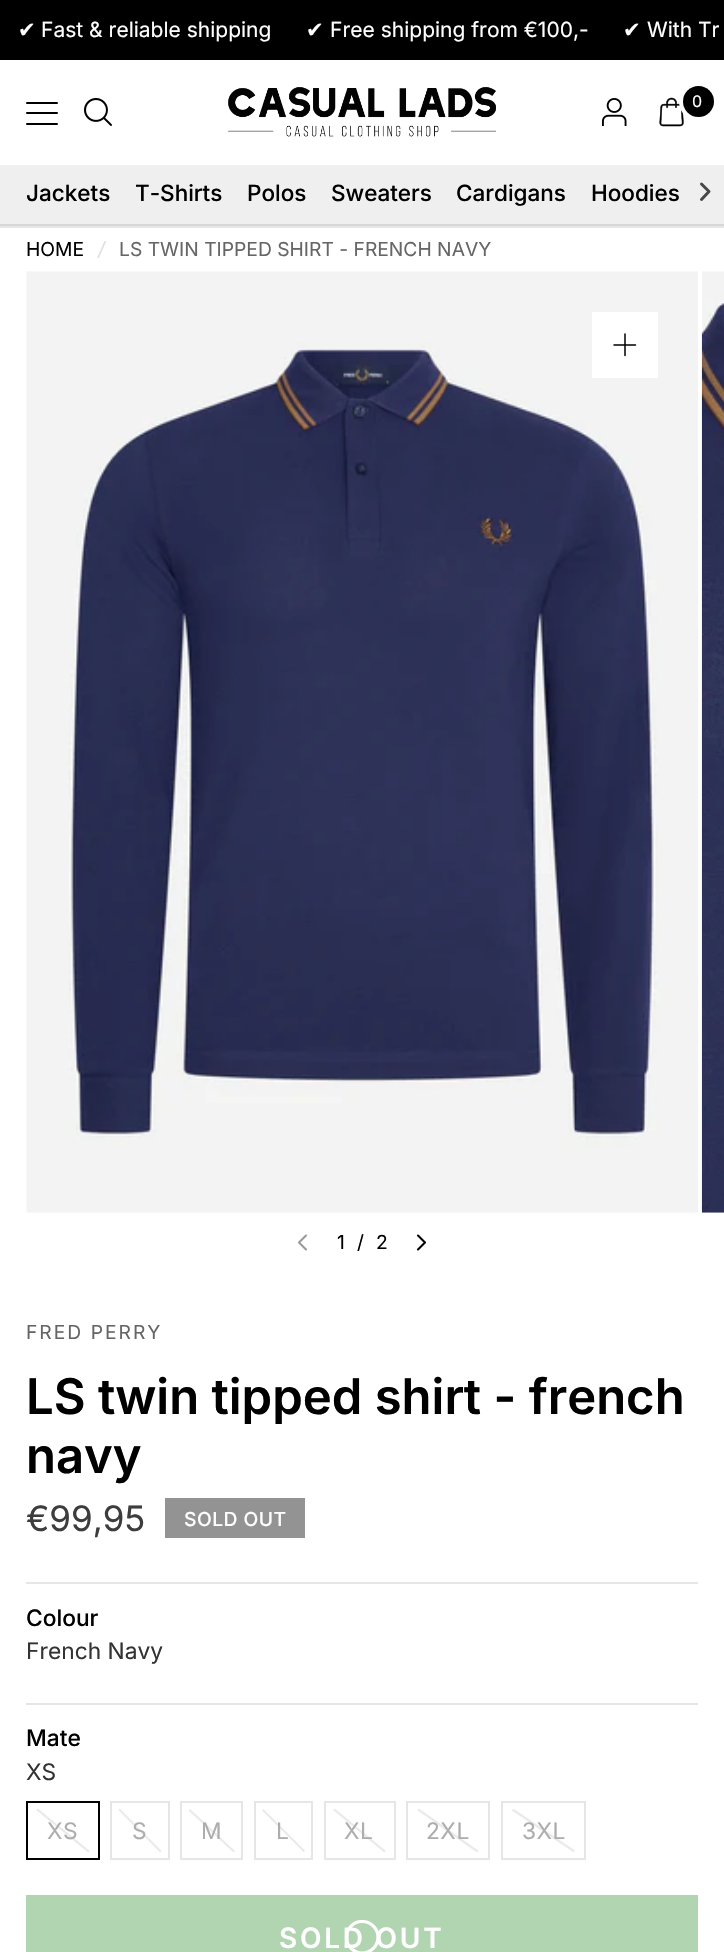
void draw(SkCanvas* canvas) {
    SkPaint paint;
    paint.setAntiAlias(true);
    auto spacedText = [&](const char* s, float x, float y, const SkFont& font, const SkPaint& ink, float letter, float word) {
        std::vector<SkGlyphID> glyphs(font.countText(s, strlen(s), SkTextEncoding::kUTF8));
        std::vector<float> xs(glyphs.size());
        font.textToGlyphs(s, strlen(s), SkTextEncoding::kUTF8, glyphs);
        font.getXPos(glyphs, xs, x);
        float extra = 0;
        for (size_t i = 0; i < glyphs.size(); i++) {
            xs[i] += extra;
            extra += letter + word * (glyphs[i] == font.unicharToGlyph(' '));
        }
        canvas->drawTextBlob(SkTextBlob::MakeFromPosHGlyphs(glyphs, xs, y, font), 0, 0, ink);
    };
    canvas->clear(0xFFFFFFFF);
    paint.setColor(0xFF000000);
    canvas->drawRect(SkRect::MakeXYWH(0, 0, 724, 60), paint);
    SkFont font1(fontMgr->matchFamilyStyle("DejaVu Sans", SkFontStyle::Normal()), 21);
    font1.setSubpixel(true);
    paint.setColor(0xFFFFFFFF);
    canvas->drawString("✔", 18, 37, font1, paint);
    SkFont font2(fontMgr->matchFamilyStyle("Inter", SkFontStyle::Normal()), 21);
    font2.setSubpixel(true);
    canvas->drawString("Fast & reliable shipping", 41, 37, font2, paint);
    canvas->drawString("✔", 306, 37, font1, paint);
    canvas->drawString("Free shipping from €100,-", 330, 37, font2, paint);
    canvas->drawString("✔", 623, 37, font1, paint);
    canvas->drawString("With Tr", 647, 37, font2, paint);
    paint.setColor(0xFFE6E6E6);
    canvas->drawRect(SkRect::MakeXYWH(0, 226, 724, 2), paint);
    paint.setColor(0xFF000000);
    canvas->drawRoundRect(SkRect::MakeXYWH(26, 102, 32, 2), 1, 1, paint);
    canvas->drawRoundRect(SkRect::MakeXYWH(26, 112, 32, 2), 1, 1, paint);
    canvas->drawRoundRect(SkRect::MakeXYWH(26, 123, 32, 2), 1, 1, paint);
    canvas->drawImageRect(SkImages::DeferredFromEncodedData(SkData::MakeFromFileName("img1.png")), SkRect::MakeXYWH(84, 98, 28, 28), SkSamplingOptions());
    canvas->drawImageRect(SkImages::DeferredFromEncodedData(SkData::MakeFromFileName("img2.png")), SkRect::MakeXYWH(228, 87, 268, 50), SkSamplingOptions());
    canvas->drawImageRect(SkImages::DeferredFromEncodedData(SkData::MakeFromFileName("img3.png")), SkRect::MakeXYWH(602, 98, 25, 28), SkSamplingOptions());
    canvas->drawImageRect(SkImages::DeferredFromEncodedData(SkData::MakeFromFileName("img4.png")), SkRect::MakeXYWH(659, 97, 25, 30), SkSamplingOptions());
    paint.setStyle(SkPaint::kStroke_Style);
    paint.setStrokeWidth(4);
    paint.setColor(0xFFFFFFFF);
    canvas->drawCircle(698.5f, 101.5f, 17.5f, paint);
    paint.setStyle(SkPaint::kFill_Style);
    paint.setColor(0xFF000000);
    canvas->drawCircle(698.5f, 101.5f, 15.5f, paint);
    SkFont font3(fontMgr->matchFamilyStyle("Inter", SkFontStyle::Normal()), 16);
    font3.setSubpixel(true);
    paint.setColor(0xFFFFFFFF);
    canvas->drawString("0", 692, 107, font3, paint);
    paint.setColor(0xFFEFEFEF);
    canvas->drawRect(SkRect::MakeXYWH(0, 165, 724, 59), paint);
    paint.setColor(0xFFD7D7D7);
    canvas->drawRect(SkRect::MakeXYWH(0, 224, 724, 2), paint);
    SkFont font4(fontMgr->matchFamilyStyle("Inter", SkFontStyle(500, SkFontStyle::kNormal_Width, SkFontStyle::kUpright_Slant)), 22.5f);
    font4.setSubpixel(true);
    paint.setColor(0xFF000000);
    canvas->drawString("Jackets", 26, 201, font4, paint);
    canvas->drawString("T-Shirts", 135, 201, font4, paint);
    canvas->drawString("Polos", 247, 201, font4, paint);
    canvas->drawString("Sweaters", 331, 201, font4, paint);
    canvas->drawString("Cardigans", 456, 201, font4, paint);
    canvas->drawString("Hoodies", 591, 201, font4, paint);
    paint.setStyle(SkPaint::kStroke_Style);
    paint.setStrokeWidth(3);
    paint.setStrokeCap(SkPaint::kRound_Cap);
    paint.setStrokeJoin(SkPaint::kRound_Join);
    paint.setColor(0xFF484848);
    canvas->drawPath(SkPathBuilder().moveTo(701.5f, 184).lineTo(709, 191.5f).lineTo(701.5f, 199.5f).detach(), paint);
    SkFont font5(fontMgr->matchFamilyStyle("Inter", SkFontStyle::Normal()), 19.25f);
    font5.setSubpixel(true);
    paint.setStyle(SkPaint::kFill_Style);
    paint.setColor(0xFF000000);
    canvas->drawString("HOME", 26, 256, font5, paint);
    SkFont font6(fontMgr->matchFamilyStyle("Inter", SkFontStyle::Italic()), 19.25f);
    font6.setSubpixel(true);
    paint.setColor(0xFFE0E0E0);
    canvas->drawString("/", 98, 256, font6, paint);
    paint.setColor(0xFF666666);
    canvas->drawString("LS TWIN TIPPED SHIRT - FRENCH NAVY", 119, 256, font5, paint);
    canvas->drawImageRect(SkImages::DeferredFromEncodedData(SkData::MakeFromFileName("img5.png")), SkRect::MakeXYWH(26, 271, 672, 942), SkSamplingOptions());
    paint.setColor(0xFFFFFFFF);
    canvas->drawRect(SkRect::MakeXYWH(592, 312, 66, 66), paint);
    paint.setStyle(SkPaint::kStroke_Style);
    paint.setStrokeWidth(1.5f);
    paint.setColor(0xFF000000);
    canvas->drawPath(SkPathBuilder().moveTo(614, 345).lineTo(635.5f, 345).moveTo(625, 334).lineTo(625, 355.5f).detach(), paint);
    canvas->drawImageRect(SkImages::DeferredFromEncodedData(SkData::MakeFromFileName("img6.png")), SkRect::MakeXYWH(701, 271, 23, 942), SkSamplingOptions());
    paint.setStrokeWidth(2.1f);
    paint.setColor(0xFF999999);
    canvas->drawPath(SkPathBuilder().moveTo(306, 1235.5f).lineTo(299, 1242.5f).lineTo(306, 1249.5f).detach(), paint);
    paint.setStyle(SkPaint::kFill_Style);
    paint.setColor(0xFF000000);
    canvas->drawString("1", 337, 1249, font5, paint);
    canvas->drawString("/", 357, 1249, font5, paint);
    canvas->drawString("2", 376, 1249, font5, paint);
    paint.setStyle(SkPaint::kStroke_Style);
    canvas->drawPath(SkPathBuilder().moveTo(418, 1235.5f).lineTo(425, 1242.5f).lineTo(418, 1249.5f).detach(), paint);
    paint.setStyle(SkPaint::kFill_Style);
    paint.setColor(0xFF666666);
    spacedText("FRED PERRY", 26, 1339, font5, paint, 2, 0);
    SkFont font7(fontMgr->matchFamilyStyle("Inter", SkFontStyle(600, SkFontStyle::kNormal_Width, SkFontStyle::kUpright_Slant)), 49);
    font7.setSubpixel(true);
    paint.setColor(0xFF000000);
    canvas->drawString("LS twin tipped shirt - french", 26, 1414, font7, paint);
    canvas->drawString("navy", 26, 1473, font7, paint);
    SkFont font8(fontMgr->matchFamilyStyle("Inter", SkFontStyle::Normal()), 35);
    font8.setSubpixel(true);
    paint.setColor(0xFF3D3D3D);
    canvas->drawString("€99,95", 26, 1531, font8, paint);
    paint.setColor(0xFF939393);
    canvas->drawRect(SkRect::MakeXYWH(165, 1498, 140, 40), paint);
    SkFont font9(fontMgr->matchFamilyStyle("Inter", SkFontStyle(500, SkFontStyle::kNormal_Width, SkFontStyle::kUpright_Slant)), 19.25f);
    font9.setSubpixel(true);
    paint.setColor(0xFFFFFFFF);
    spacedText("SOLD OUT", 184, 1526, font9, paint, 0.5f, 0);
    paint.setColor(0xFFE6E6E6);
    canvas->drawRect(SkRect::MakeXYWH(26, 1582, 672, 2), paint);
    SkFont font10(fontMgr->matchFamilyStyle("Inter", SkFontStyle(500, SkFontStyle::kNormal_Width, SkFontStyle::kUpright_Slant)), 22.75f);
    font10.setSubpixel(true);
    paint.setColor(0xFF000000);
    canvas->drawString("Colour", 26, 1626, font10, paint);
    SkFont font11(fontMgr->matchFamilyStyle("Inter", SkFontStyle::Normal()), 22.75f);
    font11.setSubpixel(true);
    paint.setColor(0xFF333333);
    canvas->drawString("French Navy", 26, 1659, font11, paint);
    paint.setColor(0xFFE6E6E6);
    canvas->drawRect(SkRect::MakeXYWH(26, 1703, 672, 2), paint);
    paint.setColor(0xFF000000);
    canvas->drawString("Mate", 26, 1746, font10, paint);
    paint.setColor(0xFF333333);
    canvas->drawString("XS", 26, 1780, font11, paint);
    paint.setStyle(SkPaint::kStroke_Style);
    paint.setStrokeWidth(2);
    paint.setStrokeCap(SkPaint::kButt_Cap);
    paint.setStrokeJoin(SkPaint::kMiter_Join);
    paint.setColor(0xFF000000);
    canvas->drawRect(SkRect::MakeXYWH(27, 1802, 72, 57), paint);
    paint.setStyle(SkPaint::kFill_Style);
    {
        const SkColor colors[] = {0x00000000, 0x1A000000, 0x00000000};
        const float stops[] = {0.48f, 0.5f, 0.52f};
        const SkPoint ends[] = {{92, 1795}, {34, 1866}};
        paint.setShader(SkGradientShader::MakeLinear(ends, colors, stops, 3, SkTileMode::kClamp));
        paint.setAlpha(255);
    }
    canvas->drawOval(SkRect::MakeXYWH(26, 1800.5f, 74, 60), paint);
    paint.setShader(nullptr);
    paint.setColor(0xFFADADAD);
    spacedText("XS", 47, 1839, font11, paint, 0.5f, 0);
    paint.setStyle(SkPaint::kStroke_Style);
    paint.setColor(0xFFE6E6E6);
    canvas->drawRect(SkRect::MakeXYWH(111, 1802, 58, 57), paint);
    paint.setStyle(SkPaint::kFill_Style);
    {
        const SkColor colors[] = {0x00000000, 0x1A000000, 0x00000000};
        const float stops[] = {0.48f, 0.5f, 0.52f};
        const SkPoint ends[] = {{170, 1801}, {110, 1860}};
        paint.setShader(SkGradientShader::MakeLinear(ends, colors, stops, 3, SkTileMode::kClamp));
        paint.setAlpha(255);
    }
    canvas->drawRoundRect(SkRect::MakeXYWH(110, 1801, 60, 59), 29.5f, 29.5f, paint);
    paint.setShader(nullptr);
    paint.setColor(0xFFADADAD);
    spacedText("S", 132, 1839, font11, paint, 0.5f, 0);
    paint.setStyle(SkPaint::kStroke_Style);
    paint.setColor(0xFFE6E6E6);
    canvas->drawRect(SkRect::MakeXYWH(181, 1802, 61, 57), paint);
    paint.setStyle(SkPaint::kFill_Style);
    {
        const SkColor colors[] = {0x00000000, 0x1A000000, 0x00000000};
        const float stops[] = {0.48f, 0.5f, 0.52f};
        const SkPoint ends[] = {{241, 1799}, {182, 1862}};
        paint.setShader(SkGradientShader::MakeLinear(ends, colors, stops, 3, SkTileMode::kClamp));
        paint.setAlpha(255);
    }
    canvas->drawOval(SkRect::MakeXYWH(180.5f, 1800.5f, 63, 60), paint);
    paint.setShader(nullptr);
    paint.setColor(0xFFADADAD);
    spacedText("M", 201, 1839, font11, paint, 0.5f, 0);
    paint.setStyle(SkPaint::kStroke_Style);
    paint.setColor(0xFFE6E6E6);
    canvas->drawRect(SkRect::MakeXYWH(255, 1802, 57, 57), paint);
    paint.setStyle(SkPaint::kFill_Style);
    {
        const SkColor colors[] = {0x00000000, 0x1A000000, 0x00000000};
        const float stops[] = {0.48f, 0.5f, 0.52f};
        const SkPoint ends[] = {{313, 1801}, {254, 1860}};
        paint.setShader(SkGradientShader::MakeLinear(ends, colors, stops, 3, SkTileMode::kClamp));
        paint.setAlpha(255);
    }
    canvas->drawCircle(283.5f, 1830.5f, 29.5f, paint);
    paint.setShader(nullptr);
    paint.setColor(0xFFADADAD);
    spacedText("L", 276, 1839, font11, paint, 0.5f, 0);
    paint.setStyle(SkPaint::kStroke_Style);
    paint.setColor(0xFFE6E6E6);
    canvas->drawRect(SkRect::MakeXYWH(325, 1802, 70, 57), paint);
    paint.setStyle(SkPaint::kFill_Style);
    {
        const SkColor colors[] = {0x00000000, 0x1A000000, 0x00000000};
        const float stops[] = {0.48f, 0.5f, 0.52f};
        const SkPoint ends[] = {{389, 1795}, {330, 1866}};
        paint.setShader(SkGradientShader::MakeLinear(ends, colors, stops, 3, SkTileMode::kClamp));
        paint.setAlpha(255);
    }
    canvas->drawOval(SkRect::MakeXYWH(323.5f, 1800.5f, 72, 60), paint);
    paint.setShader(nullptr);
    paint.setColor(0xFFADADAD);
    spacedText("XL", 344, 1839, font11, paint, 0.5f, 0);
    paint.setStyle(SkPaint::kStroke_Style);
    paint.setColor(0xFFE6E6E6);
    canvas->drawRect(SkRect::MakeXYWH(407, 1802, 82, 57), paint);
    paint.setStyle(SkPaint::kFill_Style);
    {
        const SkColor colors[] = {0x00000000, 0x1A000000, 0x00000000};
        const float stops[] = {0.48f, 0.5f, 0.52f};
        const SkPoint ends[] = {{476, 1791}, {420, 1870}};
        paint.setShader(SkGradientShader::MakeLinear(ends, colors, stops, 3, SkTileMode::kClamp));
        paint.setAlpha(255);
    }
    canvas->drawOval(SkRect::MakeXYWH(406, 1800.5f, 84, 60), paint);
    paint.setShader(nullptr);
    paint.setColor(0xFFADADAD);
    spacedText("2XL", 426, 1839, font11, paint, 0.5f, 0);
    paint.setStyle(SkPaint::kStroke_Style);
    paint.setColor(0xFFE6E6E6);
    canvas->drawRect(SkRect::MakeXYWH(502, 1802, 83, 57), paint);
    paint.setStyle(SkPaint::kFill_Style);
    {
        const SkColor colors[] = {0x00000000, 0x1A000000, 0x00000000};
        const float stops[] = {0.48f, 0.5f, 0.52f};
        const SkPoint ends[] = {{571, 1790}, {516, 1871}};
        paint.setShader(SkGradientShader::MakeLinear(ends, colors, stops, 3, SkTileMode::kClamp));
        paint.setAlpha(255);
    }
    canvas->drawOval(SkRect::MakeXYWH(500.5f, 1800.5f, 86, 60), paint);
    paint.setShader(nullptr);
    paint.setColor(0xFFADADAD);
    spacedText("3XL", 522, 1839, font11, paint, 0.5f, 0);
    paint.setColor(0xFFB1D5B1);
    canvas->drawRect(SkRect::MakeXYWH(26, 1895, 672, 57), paint);
    canvas->save();
    canvas->clipRect(SkRect::MakeXYWH(345, 1920, 35, 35));
    paint.setStyle(SkPaint::kStroke_Style);
    paint.setStrokeWidth(3.2f);
    paint.setColor(0xFFFFFFFF);
    canvas->drawPath(SkPathBuilder().moveTo(362, 1921.5f).cubicTo(371, 1921.5f, 378, 1928.5f, 378, 1937).cubicTo(378, 1946, 371, 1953, 362, 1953).cubicTo(353.5f, 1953, 346.5f, 1946, 346.5f, 1937).cubicTo(346.5f, 1928.5f, 353.5f, 1921.5f, 362, 1921.5f).detach(), paint);
    canvas->restore();
    SkFont font12(fontMgr->matchFamilyStyle("Inter", SkFontStyle(600, SkFontStyle::kNormal_Width, SkFontStyle::kUpright_Slant)), 28);
    font12.setSubpixel(true);
    paint.setStyle(SkPaint::kFill_Style);
    spacedText("SOLD OUT", 279, 1948, font12, paint, 2.75f, 0);
}
